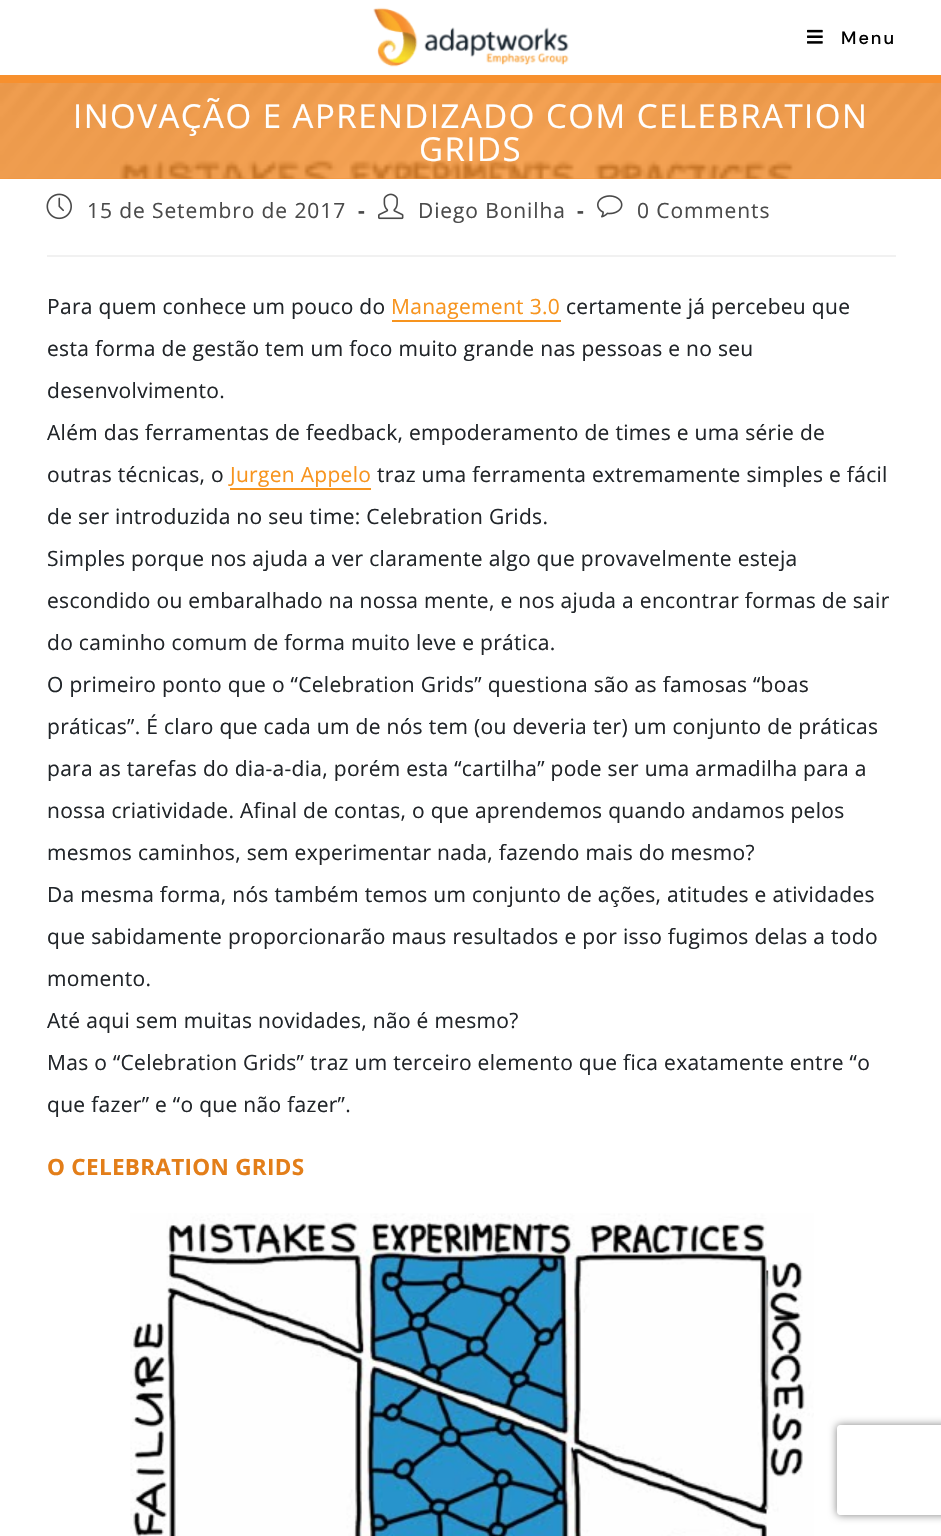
void draw(SkCanvas* canvas) {
    SkPaint paint;
    paint.setAntiAlias(true);
    auto spacedText = [&](const char* s, float x, float y, const SkFont& font, const SkPaint& ink, float letter, float word) {
        std::vector<SkGlyphID> glyphs(font.countText(s, strlen(s), SkTextEncoding::kUTF8));
        std::vector<float> xs(glyphs.size());
        font.textToGlyphs(s, strlen(s), SkTextEncoding::kUTF8, glyphs);
        font.getXPos(glyphs, xs, x);
        float extra = 0;
        for (size_t i = 0; i < glyphs.size(); i++) {
            xs[i] += extra;
            extra += letter + word * (glyphs[i] == font.unicharToGlyph(' '));
        }
        canvas->drawTextBlob(SkTextBlob::MakeFromPosHGlyphs(glyphs, xs, y, font), 0, 0, ink);
    };
    canvas->clear(0xFFFFFFFF);
    paint.setColor(0xFFF7902E);
    canvas->drawRect(SkRect::MakeXYWH(0, 75, 941, 8), paint);
    canvas->drawImageRect(SkImages::DeferredFromEncodedData(SkData::MakeFromFileName("img1.png")), SkRect::MakeXYWH(373, 7, 196, 60), SkSamplingOptions());
    canvas->drawImageRect(SkImages::DeferredFromEncodedData(SkData::MakeFromFileName("img2.png")), SkRect::MakeXYWH(807, 29, 16, 15), SkSamplingOptions());
    SkFont font1(fontMgr->matchFamilyStyle("DM Sans", SkFontStyle(500, SkFontStyle::kNormal_Width, SkFontStyle::kUpright_Slant)), 18);
    font1.setSubpixel(true);
    paint.setColor(0xFF000000);
    spacedText("Menu", 841, 44, font1, paint, 2, 0);
    paint.setColor(0xFFF79535);
    canvas->drawRect(SkRect::MakeXYWH(0, 178, 941, 1), paint);
    canvas->drawImageRect(SkImages::DeferredFromEncodedData(SkData::MakeFromFileName("img3.png")), SkRect::MakeXYWH(0, 83, 941, 96), SkSamplingOptions());
    SkFont font2(fontMgr->matchFamilyStyle("Open Sans", SkFontStyle::Normal()), 33);
    font2.setSubpixel(true);
    paint.setColor(0xFFFFFFFF);
    spacedText("INOVAÇÃO E APRENDIZADO COM CELEBRATION", 73, 128, font2, paint, 1.5f, 0);
    spacedText("GRIDS", 419, 161, font2, paint, 1.5f, 0);
    paint.setColor(0xFFF1F1F1);
    canvas->drawRect(SkRect::MakeXYWH(47, 255, 849, 2), paint);
    canvas->drawImageRect(SkImages::DeferredFromEncodedData(SkData::MakeFromFileName("img4.png")), SkRect::MakeXYWH(46, 193, 26, 27), SkSamplingOptions());
    SkFont font3(fontMgr->matchFamilyStyle("Open Sans", SkFontStyle::Normal()), 21);
    font3.setSubpixel(true);
    paint.setColor(0xFF4A4A4A);
    spacedText("15 de Setembro de 2017", 87, 218, font3, paint, 0.9f, 0);
    SkFont font4(fontMgr->matchFamilyStyle("Open Sans", SkFontStyle::Bold()), 21);
    font4.setSubpixel(true);
    spacedText("-", 358, 218, font4, paint, 0.9f, 0);
    canvas->drawImageRect(SkImages::DeferredFromEncodedData(SkData::MakeFromFileName("img5.png")), SkRect::MakeXYWH(378, 193, 26, 27), SkSamplingOptions());
    spacedText("Diego Bonilha", 418, 218, font3, paint, 0.9f, 0);
    spacedText("-", 577, 218, font4, paint, 0.9f, 0);
    canvas->drawImageRect(SkImages::DeferredFromEncodedData(SkData::MakeFromFileName("img6.png")), SkRect::MakeXYWH(597, 195, 26, 23), SkSamplingOptions());
    spacedText("0 Comments", 637, 218, font3, paint, 0.9f, 0);
    paint.setColor(0xFF212529);
    spacedText("Para quem conhece um pouco do", 47, 314, font3, paint, 0.3f, 0);
    paint.setColor(0xFFF7941E);
    spacedText("Management 3.0", 391, 314, font3, paint, 0.3f, 0);
    canvas->drawRect(SkRect::MakeXYWH(392, 320, 169, 2), paint);
    paint.setColor(0xFF212529);
    spacedText("certamente já percebeu que", 566, 314, font3, paint, 0.3f, 0);
    spacedText("esta forma de gestão tem um foco muito grande nas pessoas e no seu", 47, 356, font3, paint, 0.3f, 0);
    spacedText("desenvolvimento.", 47, 398, font3, paint, 0.3f, 0);
    spacedText("Além das ferramentas de feedback, empoderamento de times e uma série de", 47, 440, font3, paint, 0.3f, 0);
    spacedText("outras técnicas, o", 47, 482, font3, paint, 0.3f, 0);
    paint.setColor(0xFFF7941E);
    spacedText("Jurgen Appelo", 230, 482, font3, paint, 0.3f, 0);
    canvas->drawRect(SkRect::MakeXYWH(230, 488, 141, 2), paint);
    paint.setColor(0xFF212529);
    spacedText("traz uma ferramenta extremamente simples e fácil", 377, 482, font3, paint, 0.3f, 0);
    spacedText("de ser introduzida no seu time: Celebration Grids.", 47, 524, font3, paint, 0.3f, 0);
    spacedText("Simples porque nos ajuda a ver claramente algo que provavelmente esteja", 47, 566, font3, paint, 0.3f, 0);
    spacedText("escondido ou embaralhado na nossa mente, e nos ajuda a encontrar formas de sair", 47, 608, font3, paint, 0.3f, 0);
    spacedText("do caminho comum de forma muito leve e prática.", 47, 650, font3, paint, 0.3f, 0);
    spacedText("O primeiro ponto que o “Celebration Grids” questiona são as famosas “boas", 47, 692, font3, paint, 0.3f, 0);
    spacedText("práticas”. É claro que cada um de nós tem (ou deveria ter) um conjunto de práticas", 47, 734, font3, paint, 0.3f, 0);
    spacedText("para as tarefas do dia-a-dia, porém esta “cartilha” pode ser uma armadilha para a", 47, 776, font3, paint, 0.3f, 0);
    spacedText("nossa criatividade. Afinal de contas, o que aprendemos quando andamos pelos", 47, 818, font3, paint, 0.3f, 0);
    spacedText("mesmos caminhos, sem experimentar nada, fazendo mais do mesmo?", 47, 860, font3, paint, 0.3f, 0);
    spacedText("Da mesma forma, nós também temos um conjunto de ações, atitudes e atividades", 47, 902, font3, paint, 0.3f, 0);
    spacedText("que sabidamente proporcionarão maus resultados e por isso fugimos delas a todo", 47, 944, font3, paint, 0.3f, 0);
    spacedText("momento.", 47, 986, font3, paint, 0.3f, 0);
    spacedText("Até aqui sem muitas novidades, não é mesmo?", 47, 1028, font3, paint, 0.3f, 0);
    spacedText("Mas o “Celebration Grids” traz um terceiro elemento que fica exatamente entre “o", 47, 1070, font3, paint, 0.3f, 0);
    spacedText("que fazer” e “o que não fazer”.", 47, 1112, font3, paint, 0.3f, 0);
    SkFont font5(fontMgr->matchFamilyStyle("Open Sans", SkFontStyle::Bold()), 22.5f);
    font5.setSubpixel(true);
    paint.setColor(0xFFE37E19);
    spacedText("O CELEBRATION GRIDS", 47, 1175, font5, paint, 0.3f, 0);
    canvas->drawImageRect(SkImages::DeferredFromEncodedData(SkData::MakeFromFileName("img7.png")), SkRect::MakeXYWH(130, 1213, 684, 323), SkSamplingOptions());
    canvas->save();
    canvas->clipPath(SkPathBuilder(SkPathFillType::kEvenOdd).moveTo(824, 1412).lineTo(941, 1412).lineTo(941, 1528).lineTo(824, 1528).close().moveTo(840, 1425).lineTo(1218, 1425).cubicTo(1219.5f, 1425, 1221, 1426.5f, 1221, 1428).lineTo(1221, 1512).cubicTo(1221, 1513.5f, 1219.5f, 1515, 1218, 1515).lineTo(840, 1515).cubicTo(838.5f, 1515, 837, 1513.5f, 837, 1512).lineTo(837, 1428).cubicTo(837, 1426.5f, 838.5f, 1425, 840, 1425).close().detach(), true);
    paint.setColor(0xFF808080);
    paint.setMaskFilter(SkMaskFilter::MakeBlur(kNormal_SkBlurStyle, 4));
    canvas->drawRoundRect(SkRect::MakeXYWH(837, 1425, 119, 90), 3, 3, paint);
    paint.setMaskFilter(nullptr);
    canvas->restore();
}
